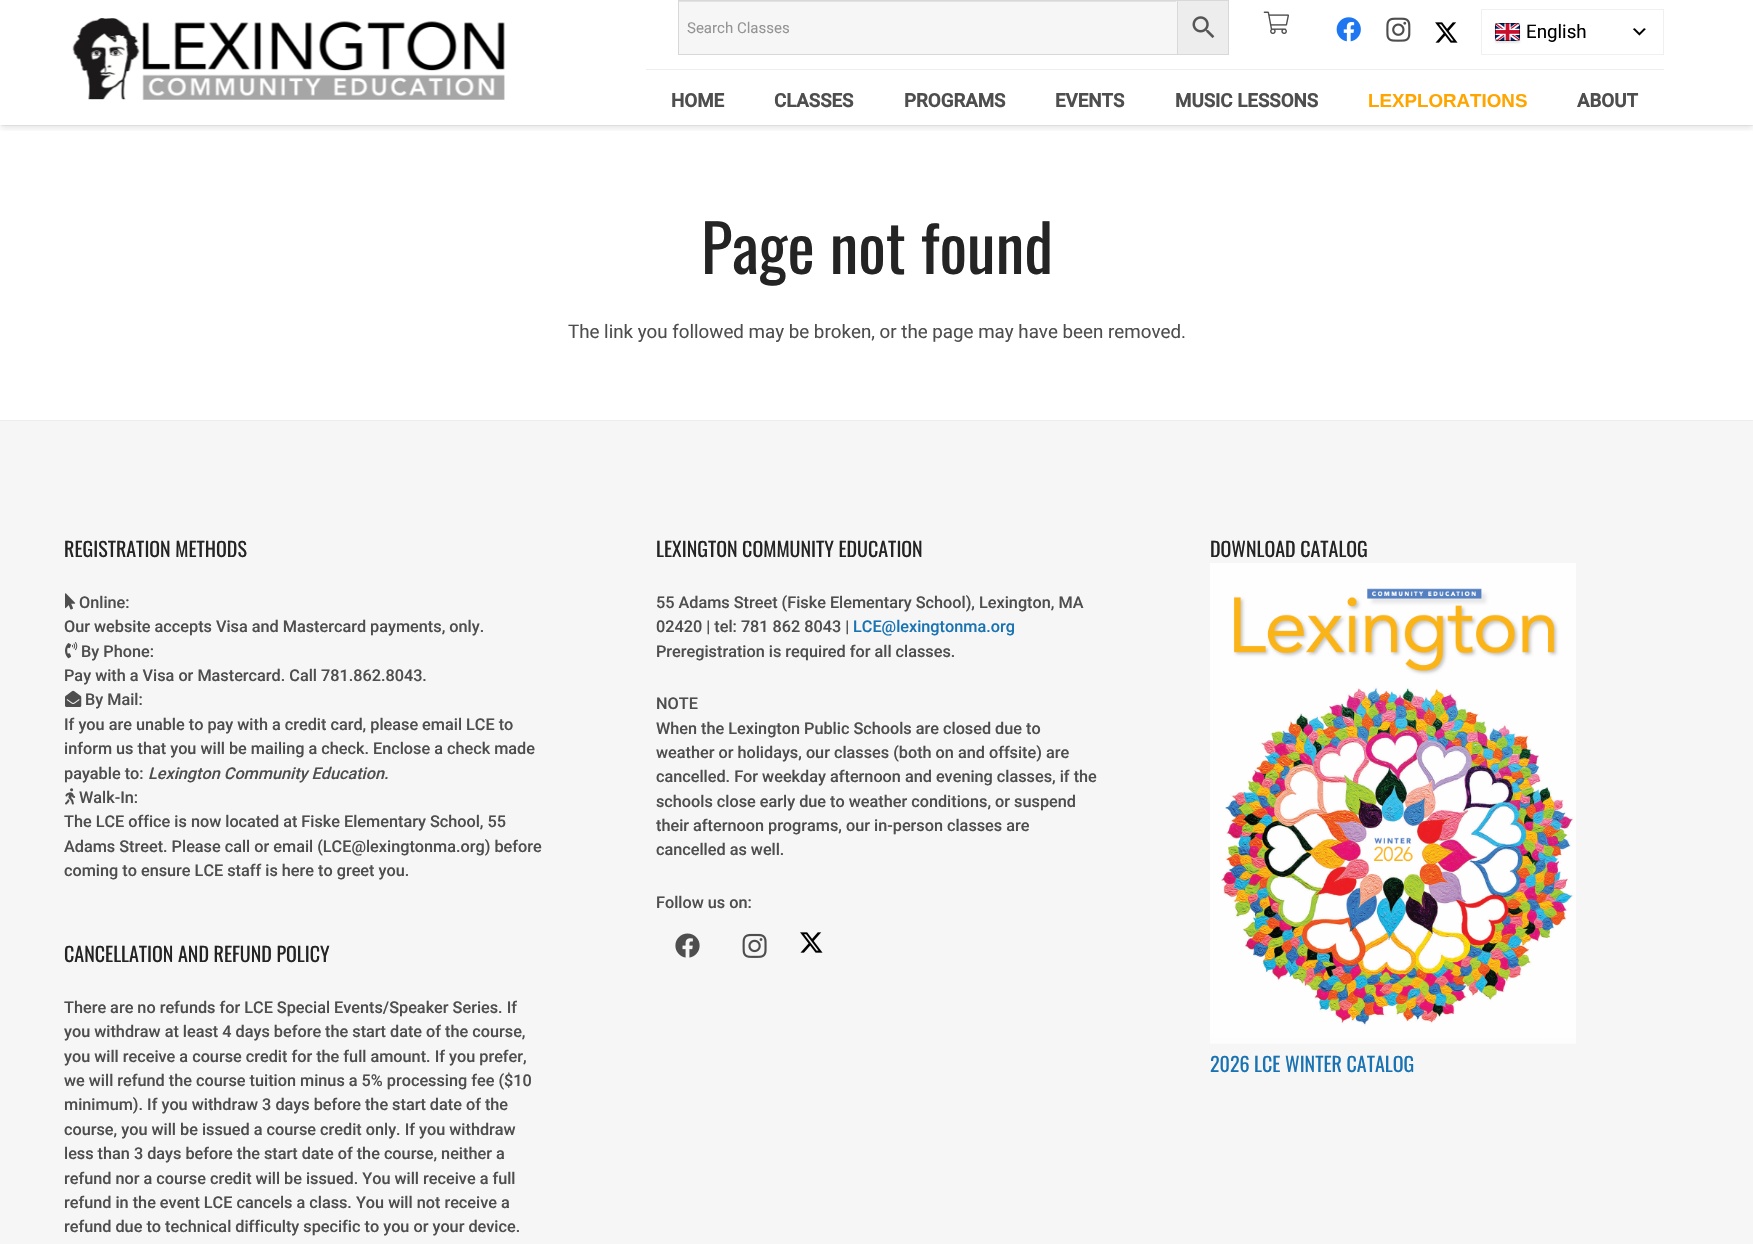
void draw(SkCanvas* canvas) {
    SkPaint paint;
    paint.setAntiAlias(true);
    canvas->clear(0xFFFFFFFF);
    canvas->save();
    canvas->clipRect(SkRect::MakeXYWH(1, 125, 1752, 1));
    paint.setColor(0x0D000000);
    paint.setMaskFilter(SkMaskFilter::MakeBlur(kNormal_SkBlurStyle, 0.5f));
    canvas->drawRect(SkRect::MakeXYWH(1, 4, 1752, 122), paint);
    paint.setMaskFilter(nullptr);
    canvas->restore();
    canvas->save();
    canvas->clipRect(SkRect::MakeXYWH(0, 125, 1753, 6));
    paint.setColor(0x1A000000);
    paint.setMaskFilter(SkMaskFilter::MakeBlur(kNormal_SkBlurStyle, 3));
    canvas->drawRect(SkRect::MakeXYWH(1, 5, 1752, 123), paint);
    paint.setMaskFilter(nullptr);
    canvas->restore();
    canvas->drawImageRect(SkImages::DeferredFromEncodedData(SkData::MakeFromFileName("img1.png")), SkRect::MakeXYWH(72, 18, 433, 82), SkSamplingOptions());
    paint.setColor(0xFFEDEDED);
    canvas->drawRect(SkRect::MakeXYWH(1178, 1, 50, 53), paint);
    paint.setStyle(SkPaint::kStroke_Style);
    paint.setStrokeWidth(1);
    paint.setColor(0xFFD8D8D8);
    canvas->drawRect(SkRect::MakeXYWH(1176.5f, 0.5f, 52, 54), paint);
    paint.setStyle(SkPaint::kFill_Style);
    paint.setColor(0xFFF6F6F6);
    canvas->drawRect(SkRect::MakeXYWH(679, 1, 498, 53), paint);
    paint.setColor(0xFFE2E2E2);
    canvas->drawRect(SkRect::MakeXYWH(679, 1, 497, 1), paint);
    paint.setStyle(SkPaint::kStroke_Style);
    paint.setColor(0xFFD8D8D8);
    canvas->drawRect(SkRect::MakeXYWH(678.5f, 0.5f, 499, 54), paint);
    SkFont font1(fontMgr->matchFamilyStyle("Roboto", SkFontStyle::Normal()), 15);
    font1.setSubpixel(true);
    paint.setStyle(SkPaint::kFill_Style);
    paint.setColor(0xFF949494);
    canvas->drawString("Search Classes", 687, 33, font1, paint);
    canvas->drawImageRect(SkImages::DeferredFromEncodedData(SkData::MakeFromFileName("img2.png")), SkRect::MakeXYWH(1192, 16, 23, 22), SkSamplingOptions());
    canvas->drawImageRect(SkImages::DeferredFromEncodedData(SkData::MakeFromFileName("img3.png")), SkRect::MakeXYWH(1263, 11, 26, 23), SkSamplingOptions());
    canvas->drawImageRect(SkImages::DeferredFromEncodedData(SkData::MakeFromFileName("img4.png")), SkRect::MakeXYWH(1336, 17, 25, 25), SkSamplingOptions());
    canvas->drawImageRect(SkImages::DeferredFromEncodedData(SkData::MakeFromFileName("img5.png")), SkRect::MakeXYWH(1386, 17, 25, 25), SkSamplingOptions());
    canvas->drawImageRect(SkImages::DeferredFromEncodedData(SkData::MakeFromFileName("img6.png")), SkRect::MakeXYWH(1435, 22, 23, 21), SkSamplingOptions());
    paint.setStyle(SkPaint::kStroke_Style);
    paint.setColor(0xFFF0F0F0);
    canvas->drawRect(SkRect::MakeXYWH(1481.5f, 9.5f, 182, 45), paint);
    paint.setStyle(SkPaint::kFill_Style);
    paint.setColor(0x1A000000);
    paint.setMaskFilter(SkMaskFilter::MakeBlur(kNormal_SkBlurStyle, 1));
    canvas->drawRoundRect(SkRect::MakeXYWH(1495, 24, 25, 19), 2, 2, paint);
    paint.setMaskFilter(nullptr);
    canvas->drawImageRect(SkImages::DeferredFromEncodedData(SkData::MakeFromFileName("img7.png")), SkRect::MakeXYWH(1495, 23, 25, 18), SkSamplingOptions());
    paint.setStyle(SkPaint::kStroke_Style);
    paint.setColor(0x80000000);
    canvas->drawRoundRect(SkRect::MakeXYWH(1495.5f, 23.5f, 24, 17), 2, 2, paint);
    SkFont font2(fontMgr->matchFamilyStyle("Roboto", SkFontStyle::Normal()), 18.75f);
    font2.setSubpixel(true);
    paint.setStyle(SkPaint::kFill_Style);
    paint.setColor(0xFF000000);
    canvas->drawString("English", 1526, 38, font2, paint);
    canvas->drawImageRect(SkImages::DeferredFromEncodedData(SkData::MakeFromFileName("img8.png")), SkRect::MakeXYWH(1632, 28, 14, 8), SkSamplingOptions());
    paint.setColor(0xFFEEEEEE);
    canvas->drawRect(SkRect::MakeXYWH(646, 69, 1018, 1), paint);
    SkFont font3(fontMgr->matchFamilyStyle("Roboto", SkFontStyle::Bold()), 18.75f);
    font3.setSubpixel(true);
    paint.setColor(0xFF4E4E4E);
    canvas->drawString("HOME", 671, 107, font3, paint);
    canvas->drawString("CLASSES", 774, 107, font3, paint);
    canvas->drawString("PROGRAMS", 904, 107, font3, paint);
    canvas->drawString("EVENTS", 1055, 107, font3, paint);
    canvas->drawString("MUSIC LESSONS", 1175, 107, font3, paint);
    SkFont font4(fontMgr->matchFamilyStyle("Liberation Sans", SkFontStyle::Bold()), 18.75f);
    font4.setSubpixel(true);
    paint.setColor(0xFFFFA500);
    canvas->drawString("LEXPLORATIONS", 1368, 107, font4, paint);
    paint.setColor(0xFF4E4E4E);
    canvas->drawString("ABOUT", 1577, 107, font3, paint);
    SkFont font5(fontMgr->matchFamilyStyle("Oswald", SkFontStyle::Normal()), 65);
    font5.setSubpixel(true);
    paint.setColor(0xFF242424);
    canvas->drawString("Page not found", 701, 274, font5, paint);
    paint.setColor(0xFF4E4E4E);
    canvas->drawString("The link you followed may be broken, or the page may have been removed.", 568, 338, font2, paint);
    paint.setColor(0xFFF6F6F6);
    canvas->drawRect(SkRect::MakeXYWH(0, 421, 1753, 823), paint);
    paint.setColor(0xFFEEEEEE);
    canvas->drawRect(SkRect::MakeXYWH(0, 420, 1753, 1), paint);
    SkFont font6(fontMgr->matchFamilyStyle("Oswald", SkFontStyle::Normal()), 20);
    font6.setSubpixel(true);
    paint.setColor(0xFF242424);
    canvas->drawString("REGISTRATION METHODS", 64, 557, font6, paint);
    canvas->drawImageRect(SkImages::DeferredFromEncodedData(SkData::MakeFromFileName("img9.png")), SkRect::MakeXYWH(65, 593, 11, 17), SkSamplingOptions());
    SkFont font7(fontMgr->matchFamilyStyle("Roboto", SkFontStyle(500, SkFontStyle::kNormal_Width, SkFontStyle::kUpright_Slant)), 16.25f);
    font7.setSubpixel(true);
    paint.setColor(0xFF4E4E4E);
    canvas->drawString("Online:", 79, 608, font7, paint);
    canvas->drawString("Our website accepts Visa and Mastercard payments, only.", 64, 632, font7, paint);
    canvas->drawImageRect(SkImages::DeferredFromEncodedData(SkData::MakeFromFileName("img10.png")), SkRect::MakeXYWH(65, 642, 13, 17), SkSamplingOptions());
    canvas->drawString("By Phone:", 81, 657, font7, paint);
    canvas->drawString("Pay with a Visa or Mastercard. Call 781.862.8043.", 64, 681, font7, paint);
    canvas->drawImageRect(SkImages::DeferredFromEncodedData(SkData::MakeFromFileName("img11.png")), SkRect::MakeXYWH(65, 690, 17, 17), SkSamplingOptions());
    canvas->drawString("By Mail:", 85, 705, font7, paint);
    canvas->drawString("If you are unable to pay with a credit card, please email LCE to", 64, 730, font7, paint);
    canvas->drawString("inform us that you will be mailing a check. Enclose a check made", 64, 754, font7, paint);
    canvas->drawString("payable to:", 64, 779, font7, paint);
    SkFont font8(fontMgr->matchFamilyStyle("Roboto", SkFontStyle(500, SkFontStyle::kNormal_Width, SkFontStyle::kItalic_Slant)), 16.25f);
    font8.setSubpixel(true);
    canvas->drawString("Lexington Community Education.", 148, 779, font8, paint);
    canvas->drawImageRect(SkImages::DeferredFromEncodedData(SkData::MakeFromFileName("img12.png")), SkRect::MakeXYWH(65, 788, 11, 17), SkSamplingOptions());
    canvas->drawString("Walk-In:", 79, 803, font7, paint);
    canvas->drawString("The LCE office is now located at Fiske Elementary School, 55", 64, 827, font7, paint);
    canvas->drawString("Adams Street. Please call or email (LCE@lexingtonma.org) before", 64, 852, font7, paint);
    canvas->drawString("coming to ensure LCE staff is here to greet you.", 64, 876, font7, paint);
    paint.setColor(0xFF242424);
    canvas->drawString("CANCELLATION AND REFUND POLICY", 64, 962, font6, paint);
    paint.setColor(0xFF4E4E4E);
    canvas->drawString("There are no refunds for LCE Special Events/Speaker Series. If", 64, 1013, font7, paint);
    canvas->drawString("you withdraw at least 4 days before the start date of the course,", 64, 1037, font7, paint);
    canvas->drawString("you will receive a course credit for the full amount. If you prefer,", 64, 1062, font7, paint);
    canvas->drawString("we will refund the course tuition minus a 5% processing fee ($10", 64, 1086, font7, paint);
    canvas->drawString("minimum). If you withdraw 3 days before the start date of the", 64, 1110, font7, paint);
    canvas->drawString("course, you will be issued a course credit only. If you withdraw", 64, 1135, font7, paint);
    canvas->drawString("less than 3 days before the start date of the course, neither a", 64, 1159, font7, paint);
    canvas->drawString("refund nor a course credit will be issued. You will receive a full", 64, 1184, font7, paint);
    canvas->drawString("refund in the event LCE cancels a class. You will not receive a", 64, 1208, font7, paint);
    canvas->drawString("refund due to technical difficulty specific to you or your device.", 64, 1232, font7, paint);
    paint.setColor(0xFF242424);
    canvas->drawString("LEXINGTON COMMUNITY EDUCATION", 656, 557, font6, paint);
    paint.setColor(0xFF4E4E4E);
    canvas->drawString("55 Adams Street (Fiske Elementary School), Lexington, MA", 656, 608, font7, paint);
    canvas->drawString("02420 | tel: 781 862 8043 |", 656, 632, font7, paint);
    paint.setColor(0xFF1973B3);
    canvas->drawString("LCE@lexingtonma.org", 853, 632, font7, paint);
    paint.setColor(0xFF4E4E4E);
    canvas->drawString("Preregistration is required for all classes.", 656, 657, font7, paint);
    canvas->drawString("NOTE", 656, 709, font7, paint);
    canvas->drawString("When the Lexington Public Schools are closed due to", 656, 734, font7, paint);
    canvas->drawString("weather or holidays, our classes (both on and offsite) are", 656, 758, font7, paint);
    canvas->drawString("cancelled. For weekday afternoon and evening classes, if the", 656, 782, font7, paint);
    canvas->drawString("schools close early due to weather conditions, or suspend", 656, 807, font7, paint);
    canvas->drawString("their afternoon programs, our in-person classes are", 656, 831, font7, paint);
    canvas->drawString("cancelled as well.", 656, 855, font7, paint);
    canvas->drawString("Follow us on:", 656, 908, font7, paint);
    canvas->drawImageRect(SkImages::DeferredFromEncodedData(SkData::MakeFromFileName("img13.png")), SkRect::MakeXYWH(675, 933, 25, 25), SkSamplingOptions());
    canvas->drawImageRect(SkImages::DeferredFromEncodedData(SkData::MakeFromFileName("img14.png")), SkRect::MakeXYWH(742, 933, 25, 25), SkSamplingOptions());
    canvas->drawImageRect(SkImages::DeferredFromEncodedData(SkData::MakeFromFileName("img15.png")), SkRect::MakeXYWH(800, 932, 23, 21), SkSamplingOptions());
    paint.setColor(0xFF242424);
    canvas->drawString("DOWNLOAD CATALOG", 1210, 557, font6, paint);
    canvas->drawImageRect(SkImages::DeferredFromEncodedData(SkData::MakeFromFileName("img16.png")), SkRect::MakeXYWH(1210, 563, 366, 481), SkSamplingOptions());
    paint.setColor(0xFF1973B3);
    canvas->drawString("2026 LCE WINTER CATALOG", 1210, 1072, font6, paint);
}
